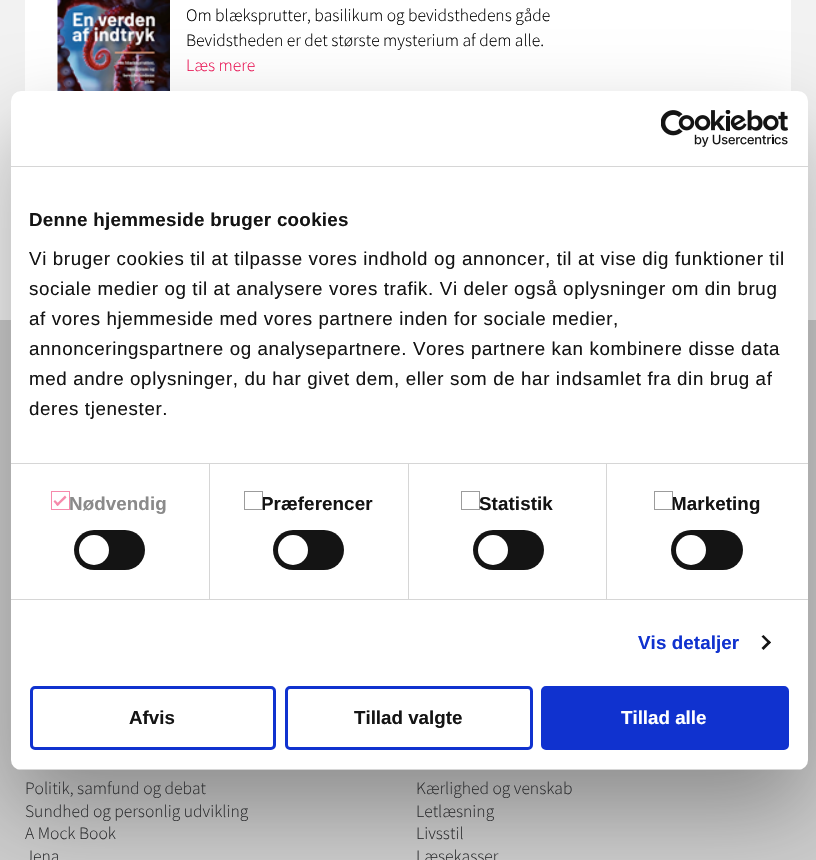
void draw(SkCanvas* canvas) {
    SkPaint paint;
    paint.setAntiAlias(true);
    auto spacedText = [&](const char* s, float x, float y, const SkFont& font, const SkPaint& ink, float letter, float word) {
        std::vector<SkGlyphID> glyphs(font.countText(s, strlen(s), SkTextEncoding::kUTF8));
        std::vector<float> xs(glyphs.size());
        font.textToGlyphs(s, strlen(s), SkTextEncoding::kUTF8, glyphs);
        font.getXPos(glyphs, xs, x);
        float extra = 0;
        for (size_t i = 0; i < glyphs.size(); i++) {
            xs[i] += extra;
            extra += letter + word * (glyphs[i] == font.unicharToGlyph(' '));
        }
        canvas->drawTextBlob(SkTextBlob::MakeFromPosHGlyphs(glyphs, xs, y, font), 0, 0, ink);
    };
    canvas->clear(0xFFF2F2F2);
    paint.setColor(0xFFFFFFFF);
    canvas->drawRect(SkRect::MakeXYWH(25, 0, 766, 91), paint);
    canvas->drawImageRect(SkImages::DeferredFromEncodedData(SkData::MakeFromFileName("img1.png")), SkRect::MakeXYWH(57, 0, 113, 91), SkSamplingOptions());
    SkFont font1(fontMgr->matchFamilyStyle("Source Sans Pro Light", SkFontStyle(300, SkFontStyle::kNormal_Width, SkFontStyle::kUpright_Slant)), 17.5f);
    font1.setSubpixel(true);
    paint.setColor(0xFF000000);
    canvas->drawString("Om blæksprutter, basilikum og bevidsthedens gåde", 186, 21, font1, paint);
    canvas->drawString("Bevidstheden er det største mysterium af dem alle.", 186, 46, font1, paint);
    paint.setColor(0xFFED1556);
    canvas->drawString("Læs mere", 186, 71, font1, paint);
    paint.setColor(0xFFCCCCCC);
    canvas->drawRect(SkRect::MakeXYWH(0, 320, 816, 540), paint);
    paint.setColor(0x4D000000);
    paint.setMaskFilter(SkMaskFilter::MakeBlur(kNormal_SkBlurStyle, 42.5f));
    canvas->drawRoundRect(SkRect::MakeXYWH(11, 131, 797, 679), 10, 10, paint);
    paint.setMaskFilter(nullptr);
    paint.setColor(0xFFFFFFFF);
    canvas->drawRoundRect(SkRect::MakeXYWH(11, 91, 797, 679), 10, 10, paint);
    paint.setColor(0xFFD6D6D6);
    canvas->drawRect(SkRect::MakeXYWH(11, 166, 797, 1), paint);
    canvas->drawImageRect(SkImages::DeferredFromEncodedData(SkData::MakeFromFileName("img2.png")), SkRect::MakeXYWH(661, 110, 127, 37), SkSamplingOptions());
    canvas->drawRect(SkRect::MakeXYWH(11, 463, 797, 1), paint);
    SkFont font2(fontMgr->matchFamilyStyle("Liberation Sans", SkFontStyle::Bold()), 18.75f);
    font2.setSubpixel(true);
    paint.setColor(0xFF141414);
    spacedText("Denne hjemmeside bruger cookies", 29, 226, font2, paint, 0.3f, 0);
    SkFont font3(fontMgr->matchFamilyStyle("Liberation Sans", SkFontStyle::Normal()), 18.75f);
    font3.setSubpixel(true);
    spacedText("Vi bruger cookies til at tilpasse vores indhold og annoncer, til at vise dig funktioner til", 29, 265, font3, paint, 0.62f, 0);
    spacedText("sociale medier og til at analysere vores trafik. Vi deler også oplysninger om din brug", 29, 295, font3, paint, 0.62f, 0);
    spacedText("af vores hjemmeside med vores partnere inden for sociale medier,", 29, 325, font3, paint, 0.62f, 0);
    spacedText("annonceringspartnere og analysepartnere. Vores partnere kan kombinere disse data", 29, 355, font3, paint, 0.62f, 0);
    spacedText("med andre oplysninger, du har givet dem, eller som de har indsamlet fra din brug af", 29, 385, font3, paint, 0.62f, 0);
    spacedText("deres tjenester.", 29, 415, font3, paint, 0.62f, 0);
    paint.setColor(0xFFD6D6D6);
    canvas->drawRect(SkRect::MakeXYWH(11, 599, 797, 1), paint);
    canvas->drawRect(SkRect::MakeXYWH(209, 464, 1, 135), paint);
    paint.setStyle(SkPaint::kStroke_Style);
    paint.setStrokeWidth(1);
    paint.setColor(0xFFF68AAB);
    canvas->drawRect(SkRect::MakeXYWH(51.5f, 491.5f, 18, 18), paint);
    paint.setStyle(SkPaint::kFill_Style);
    canvas->drawPath(SkPathBuilder().moveTo(65, 495.5f).lineTo(66.5f, 497.5f).lineTo(57.5f, 506).lineTo(56, 504.5f).close().detach(), paint);
    canvas->drawPath(SkPathBuilder().moveTo(55, 500).lineTo(59.5f, 504.5f).lineTo(57.5f, 506).lineTo(53.5f, 501.5f).close().detach(), paint);
    paint.setColor(0xFF8A8A8A);
    spacedText("Nødvendig", 69, 510, font2, paint, 0.1f, 0);
    paint.setColor(0xFF141414);
    canvas->drawRoundRect(SkRect::MakeXYWH(74, 530, 71, 40), 20, 20, paint);
    paint.setColor(0xFFFFFFFF);
    canvas->drawCircle(94, 550, 15, paint);
    paint.setColor(0xFFD6D6D6);
    canvas->drawRect(SkRect::MakeXYWH(408, 464, 1, 135), paint);
    paint.setStyle(SkPaint::kStroke_Style);
    paint.setColor(0xFF9C9C9C);
    canvas->drawRect(SkRect::MakeXYWH(244.5f, 491.5f, 18, 18), paint);
    canvas->save();
    canvas->clipRect(SkRect::MakeXYWH(263, 491, 111, 25));
    paint.setStyle(SkPaint::kFill_Style);
    paint.setColor(0xFF141414);
    spacedText("Præferencer", 261, 510, font2, paint, 0.1f, 0);
    canvas->restore();
    canvas->drawRoundRect(SkRect::MakeXYWH(273, 530, 71, 40), 20, 20, paint);
    paint.setColor(0xFFFFFFFF);
    canvas->drawCircle(293, 550, 15, paint);
    paint.setColor(0xFFD6D6D6);
    canvas->drawRect(SkRect::MakeXYWH(606, 464, 1, 135), paint);
    paint.setStyle(SkPaint::kStroke_Style);
    paint.setColor(0xFF9C9C9C);
    canvas->drawRect(SkRect::MakeXYWH(461.5f, 491.5f, 18, 18), paint);
    paint.setStyle(SkPaint::kFill_Style);
    paint.setColor(0xFF141414);
    spacedText("Statistik", 479, 510, font2, paint, 0.1f, 0);
    canvas->drawRoundRect(SkRect::MakeXYWH(473, 530, 71, 40), 20, 20, paint);
    paint.setColor(0xFFFFFFFF);
    canvas->drawCircle(493, 550, 15, paint);
    paint.setStyle(SkPaint::kStroke_Style);
    paint.setColor(0xFF9C9C9C);
    canvas->drawRect(SkRect::MakeXYWH(654.5f, 491.5f, 18, 18), paint);
    canvas->save();
    canvas->clipRect(SkRect::MakeXYWH(673, 491, 88, 25));
    paint.setStyle(SkPaint::kFill_Style);
    paint.setColor(0xFF141414);
    spacedText("Marketing", 671, 510, font2, paint, 0.1f, 0);
    canvas->restore();
    canvas->drawRoundRect(SkRect::MakeXYWH(671, 530, 72, 40), 20, 20, paint);
    paint.setColor(0xFFFFFFFF);
    canvas->drawCircle(691, 550, 15, paint);
    paint.setColor(0xFF1032CF);
    spacedText("Vis detaljer", 638, 649, font2, paint, 0.1f, 0);
    paint.setColor(0xFF141414);
    canvas->drawPath(SkPathBuilder().moveTo(763.5f, 635).lineTo(771, 642.5f).lineTo(769, 644).lineTo(761.5f, 636.5f).close().detach(), paint);
    canvas->drawPath(SkPathBuilder().moveTo(769, 640.5f).lineTo(771, 642.5f).lineTo(763.5f, 650).lineTo(761.5f, 648).close().detach(), paint);
    canvas->save();
    canvas->clipPath(SkPathBuilder().moveTo(21, 91).lineTo(798, 91).cubicTo(803.5f, 91, 808, 95.5f, 808, 101).lineTo(808, 760).cubicTo(808, 765.5f, 803.5f, 770, 798, 770).lineTo(21, 770).cubicTo(15.5f, 770, 11, 765.5f, 11, 760).lineTo(11, 101).cubicTo(11, 95.5f, 15.5f, 91, 21, 91).close().detach(), true);
    paint.setColor(0xFFD6D6D6);
    canvas->drawRect(SkRect::MakeXYWH(11, 769, 797, 1), paint);
    canvas->restore();
    paint.setStyle(SkPaint::kStroke_Style);
    paint.setStrokeWidth(3);
    paint.setColor(0xFF1032CF);
    canvas->drawRoundRect(SkRect::MakeXYWH(31.5f, 687.5f, 243, 61), 3.5f, 3.5f, paint);
    paint.setStyle(SkPaint::kFill_Style);
    paint.setColor(0xFF141414);
    canvas->drawString("Afvis", 129, 724, font2, paint);
    paint.setStyle(SkPaint::kStroke_Style);
    paint.setColor(0xFF1032CF);
    canvas->drawRoundRect(SkRect::MakeXYWH(286.5f, 687.5f, 245, 61), 3.5f, 3.5f, paint);
    paint.setStyle(SkPaint::kFill_Style);
    paint.setColor(0xFF141414);
    canvas->drawString("Tillad valgte", 354, 724, font2, paint);
    paint.setColor(0xFF1032CF);
    canvas->drawRoundRect(SkRect::MakeXYWH(542.5f, 687.5f, 245, 61), 3.5f, 3.5f, paint);
    paint.setStyle(SkPaint::kStroke_Style);
    canvas->drawRoundRect(SkRect::MakeXYWH(542.5f, 687.5f, 245, 61), 3.5f, 3.5f, paint);
    paint.setStyle(SkPaint::kFill_Style);
    paint.setColor(0xFFFFFFFF);
    canvas->drawString("Tillad alle", 621, 724, font2, paint);
    paint.setColor(0xFF2D2E30);
    canvas->drawString("Politik, samfund og debat", 25, 794, font1, paint);
    canvas->drawString("Sundhed og personlig udvikling", 25, 817, font1, paint);
    canvas->drawString("A Mock Book", 25, 839, font1, paint);
    canvas->drawString("Jena", 25, 862, font1, paint);
    canvas->drawString("Kærlighed og venskab", 416, 794, font1, paint);
    canvas->drawString("Letlæsning", 416, 817, font1, paint);
    canvas->drawString("Livsstil", 416, 839, font1, paint);
    canvas->drawString("Læsekasser", 416, 862, font1, paint);
}
